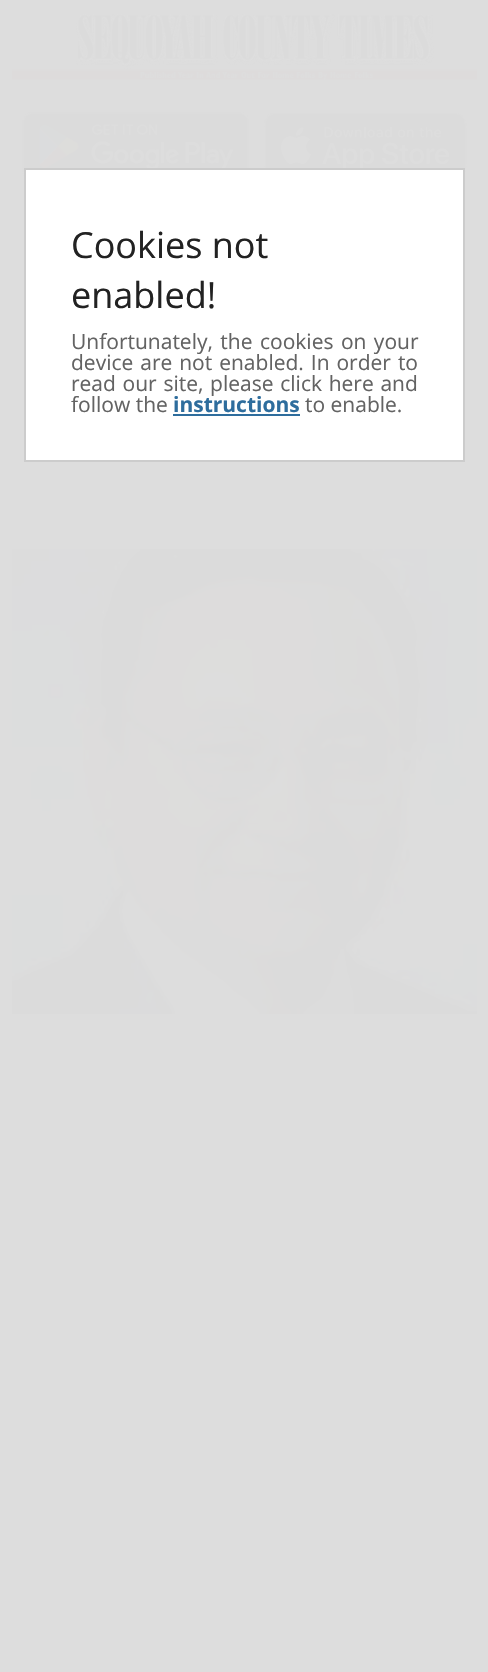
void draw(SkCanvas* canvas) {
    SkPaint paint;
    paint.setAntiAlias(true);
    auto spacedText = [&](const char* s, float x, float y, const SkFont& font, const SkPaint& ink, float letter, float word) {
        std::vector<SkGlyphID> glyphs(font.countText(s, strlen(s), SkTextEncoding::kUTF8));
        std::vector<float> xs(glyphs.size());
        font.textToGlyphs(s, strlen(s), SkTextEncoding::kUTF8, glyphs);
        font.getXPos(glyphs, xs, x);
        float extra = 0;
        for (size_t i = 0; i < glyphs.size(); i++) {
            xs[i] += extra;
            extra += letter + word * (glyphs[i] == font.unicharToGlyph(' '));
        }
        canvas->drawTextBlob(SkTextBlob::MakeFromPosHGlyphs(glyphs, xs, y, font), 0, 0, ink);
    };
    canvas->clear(0xFFDDDDDD);
    canvas->drawImageRect(SkImages::DeferredFromEncodedData(SkData::MakeFromFileName("img1.png")), SkRect::MakeXYWH(12, 14, 465, 66), SkSamplingOptions());
    canvas->drawImageRect(SkImages::DeferredFromEncodedData(SkData::MakeFromFileName("img2.png")), SkRect::MakeXYWH(22, 112, 227, 64), SkSamplingOptions());
    canvas->drawImageRect(SkImages::DeferredFromEncodedData(SkData::MakeFromFileName("img3.png")), SkRect::MakeXYWH(264, 113, 203, 61), SkSamplingOptions());
    canvas->drawImageRect(SkImages::DeferredFromEncodedData(SkData::MakeFromFileName("img4.png")), SkRect::MakeXYWH(12, 549, 465, 465), SkSamplingOptions());
    paint.setColor(0xFFFFFFFF);
    canvas->drawRect(SkRect::MakeXYWH(25, 169, 439, 292), paint);
    paint.setStyle(SkPaint::kStroke_Style);
    paint.setStrokeWidth(2);
    paint.setColor(0xFFCCCCCC);
    canvas->drawRect(SkRect::MakeXYWH(25, 169, 439, 292), paint);
    SkFont font1(fontMgr->matchFamilyStyle("Open Sans", SkFontStyle::Normal()), 36);
    font1.setSubpixel(true);
    paint.setStyle(SkPaint::kFill_Style);
    paint.setColor(0xFF222222);
    canvas->drawString("Cookies not", 71, 258, font1, paint);
    canvas->drawString("enabled!", 71, 308, font1, paint);
    SkFont font2(fontMgr->matchFamilyStyle("Open Sans", SkFontStyle::Normal()), 21);
    font2.setSubpixel(true);
    paint.setColor(0xFF636363);
    spacedText("Unfortunately, the cookies on your", 71, 349, font2, paint, 0, 2);
    spacedText("device are not enabled. In order to", 71, 370, font2, paint, 0, 1.5f);
    spacedText("read our site, please click here and", 71, 391, font2, paint, 0, 1.25f);
    canvas->drawString("follow the", 71, 412, font2, paint);
    SkFont font3(fontMgr->matchFamilyStyle("Open Sans", SkFontStyle::Bold()), 21);
    font3.setSubpixel(true);
    paint.setColor(0xFF2E6D9D);
    canvas->drawString("instructions", 173, 412, font3, paint);
    canvas->drawRect(SkRect::MakeXYWH(173, 414, 127, 2), paint);
    paint.setColor(0xFF636363);
    canvas->drawString("to enable.", 305, 412, font2, paint);
}
